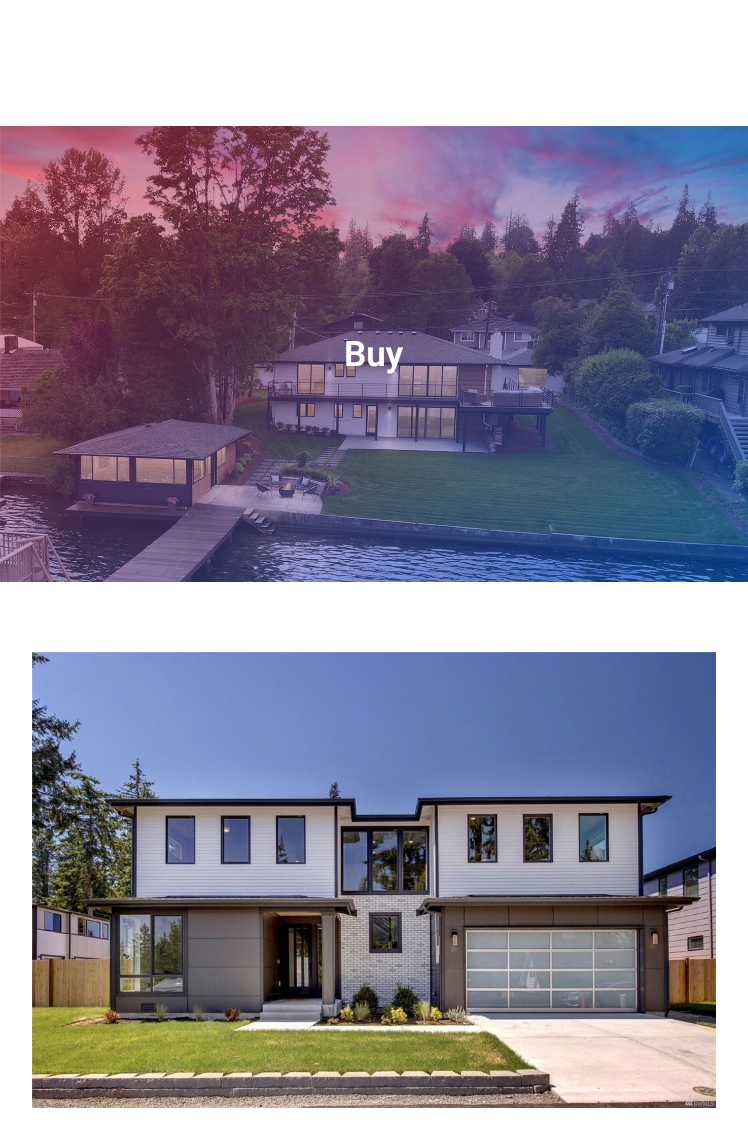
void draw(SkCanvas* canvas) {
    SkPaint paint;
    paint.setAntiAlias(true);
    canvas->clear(0xFFFFFFFF);
    canvas->drawImageRect(SkImages::DeferredFromEncodedData(SkData::MakeFromFileName("img1.png")), SkRect::MakeXYWH(0, 126, 748, 456), SkSamplingOptions());
    SkFont font1(fontMgr->matchFamilyStyle("Roboto", SkFontStyle(600, SkFontStyle::kNormal_Width, SkFontStyle::kUpright_Slant)), 35);
    font1.setSubpixel(true);
    paint.setColor(0xFFFFFFFF);
    canvas->drawString("Buy", 344, 366, font1, paint);
    canvas->drawImageRect(SkImages::DeferredFromEncodedData(SkData::MakeFromFileName("img2.png")), SkRect::MakeXYWH(32, 652, 684, 456), SkSamplingOptions());
}
